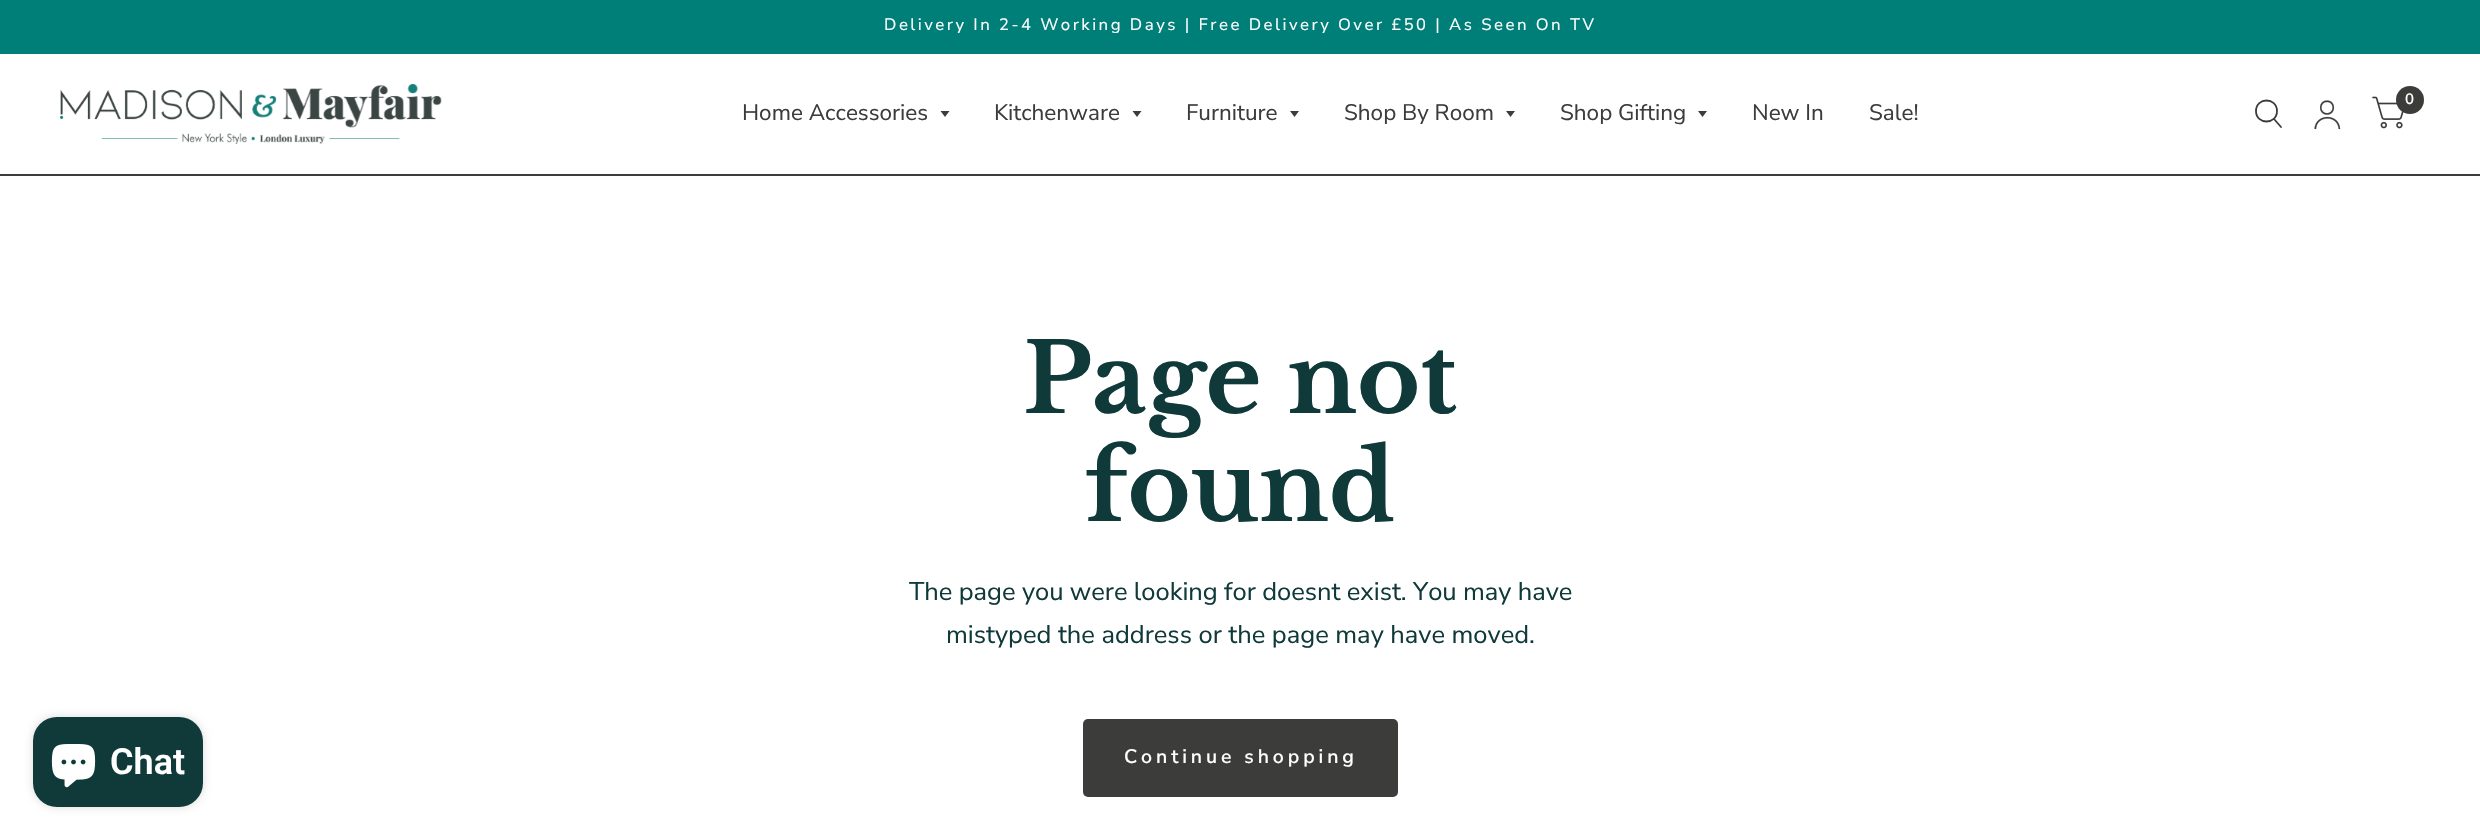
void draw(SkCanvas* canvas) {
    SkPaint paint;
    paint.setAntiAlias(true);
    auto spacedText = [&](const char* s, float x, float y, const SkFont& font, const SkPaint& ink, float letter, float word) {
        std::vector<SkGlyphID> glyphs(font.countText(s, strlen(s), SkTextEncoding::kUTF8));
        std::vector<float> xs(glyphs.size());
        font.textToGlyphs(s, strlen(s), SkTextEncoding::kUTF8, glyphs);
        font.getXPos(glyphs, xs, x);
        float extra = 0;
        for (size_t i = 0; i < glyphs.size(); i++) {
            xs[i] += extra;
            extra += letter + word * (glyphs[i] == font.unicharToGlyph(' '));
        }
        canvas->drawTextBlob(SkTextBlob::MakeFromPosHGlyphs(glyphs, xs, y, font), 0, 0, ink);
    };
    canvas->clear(0xFFFFFFFF);
    paint.setColor(0x26000000);
    paint.setMaskFilter(SkMaskFilter::MakeBlur(kNormal_SkBlurStyle, 4));
    canvas->drawRoundRect(SkRect::MakeXYWH(33, 717, 170, 90), 24, 24, paint);
    paint.setMaskFilter(nullptr);
    paint.setColor(0xFF103A3A);
    canvas->drawRoundRect(SkRect::MakeXYWH(33, 717, 170, 90), 24, 24, paint);
    canvas->drawImageRect(SkImages::DeferredFromEncodedData(SkData::MakeFromFileName("img1.png")), SkRect::MakeXYWH(51, 744, 45, 44), SkSamplingOptions());
    SkFont font1(fontMgr->matchFamilyStyle("Roboto", SkFontStyle(600, SkFontStyle::kNormal_Width, SkFontStyle::kUpright_Slant)), 36);
    font1.setSubpixel(true);
    paint.setColor(0xFFFFFFFF);
    canvas->drawString("Chat", 110, 774, font1, paint);
    paint.setColor(0xFF007E78);
    canvas->drawRect(SkRect::MakeXYWH(0, 0, 2480, 54), paint);
    SkFont font2(fontMgr->matchFamilyStyle("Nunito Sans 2", SkFontStyle::Normal()), 16.5f);
    font2.setSubpixel(true);
    paint.setColor(0xFFFFFFFF);
    spacedText("Delivery In 2-4 Working Days | Free Delivery Over £50 | As Seen On TV", 884, 30, font2, paint, 2.47f, 0);
    paint.setColor(0xFF3C3C3B);
    canvas->drawRect(SkRect::MakeXYWH(0, 174, 2480, 2), paint);
    canvas->drawImageRect(SkImages::DeferredFromEncodedData(SkData::MakeFromFileName("img2.png")), SkRect::MakeXYWH(60, 84, 382, 60), SkSamplingOptions());
    paint.setStyle(SkPaint::kStroke_Style);
    paint.setStrokeWidth(1.8f);
    paint.setStrokeCap(SkPaint::kRound_Cap);
    paint.setStrokeJoin(SkPaint::kRound_Join);
    canvas->drawPath(SkPathBuilder().moveTo(2274, 119).lineTo(2281, 127).moveTo(2277, 111).cubicTo(2277, 125, 2256, 125, 2256, 111).cubicTo(2256, 97, 2277, 97, 2277, 111).close().detach(), paint);
    canvas->drawImageRect(SkImages::DeferredFromEncodedData(SkData::MakeFromFileName("img3.png")), SkRect::MakeXYWH(2314, 100, 27, 30), SkSamplingOptions());
    canvas->drawImageRect(SkImages::DeferredFromEncodedData(SkData::MakeFromFileName("img4.png")), SkRect::MakeXYWH(2372, 96, 32, 33), SkSamplingOptions());
    paint.setStyle(SkPaint::kFill_Style);
    canvas->drawCircle(2410, 100, 14, paint);
    SkFont font3(fontMgr->matchFamilyStyle("Nunito Sans", SkFontStyle(600, SkFontStyle::kNormal_Width, SkFontStyle::kUpright_Slant)), 15);
    font3.setSubpixel(true);
    paint.setColor(0xFFFFFFFF);
    canvas->drawString("0", 2405, 104, font3, paint);
    SkFont font4(fontMgr->matchFamilyStyle("Nunito Sans", SkFontStyle::Normal()), 22.5f);
    font4.setSubpixel(true);
    paint.setColor(0xFF3C3C3B);
    canvas->drawString("Home Accessories", 742, 120, font4, paint);
    canvas->drawPath(SkPathBuilder().moveTo(940.5f, 111).lineTo(949.5f, 111).lineTo(945, 117).close().detach(), paint);
    canvas->drawString("Kitchenware", 994, 120, font4, paint);
    canvas->drawPath(SkPathBuilder().moveTo(1132.5f, 111).lineTo(1141.5f, 111).lineTo(1137, 117).close().detach(), paint);
    canvas->drawString("Furniture", 1186, 120, font4, paint);
    canvas->drawPath(SkPathBuilder().moveTo(1290, 111).lineTo(1299, 111).lineTo(1294.5f, 117).close().detach(), paint);
    canvas->drawString("Shop By Room", 1344, 120, font4, paint);
    canvas->drawPath(SkPathBuilder().moveTo(1506, 111).lineTo(1515, 111).lineTo(1510.5f, 117).close().detach(), paint);
    canvas->drawString("Shop Gifting", 1560, 120, font4, paint);
    canvas->drawPath(SkPathBuilder().moveTo(1698, 111).lineTo(1707, 111).lineTo(1702.5f, 117).close().detach(), paint);
    canvas->drawString("New In", 1752, 120, font4, paint);
    canvas->drawString("Sale!", 1869, 120, font4, paint);
    SkFont font5(fontMgr->matchFamilyStyle("Libre Baskerville", SkFontStyle::Bold()), 96);
    font5.setSubpixel(true);
    paint.setColor(0xFF103A3A);
    canvas->drawString("Page not", 1023, 413, font5, paint);
    canvas->drawString("found", 1085, 521, font5, paint);
    SkFont font6(fontMgr->matchFamilyStyle("Nunito Sans", SkFontStyle::Normal()), 25.5f);
    font6.setSubpixel(true);
    spacedText("The page you were looking for doesnt exist. You may have", 909, 600, font6, paint, 0, -0.25f);
    canvas->drawString("mistyped the address or the page may have moved.", 946, 643, font6, paint);
    paint.setColor(0xFF3C3C3B);
    canvas->drawRoundRect(SkRect::MakeXYWH(1083, 719, 315, 78), 5, 5, paint);
    SkFont font7(fontMgr->matchFamilyStyle("Nunito Sans", SkFontStyle(600, SkFontStyle::kNormal_Width, SkFontStyle::kUpright_Slant)), 19.5f);
    font7.setSubpixel(true);
    paint.setColor(0xFFFFFFFF);
    spacedText("Continue shopping", 1124, 763, font7, paint, 3.9f, 0);
}
